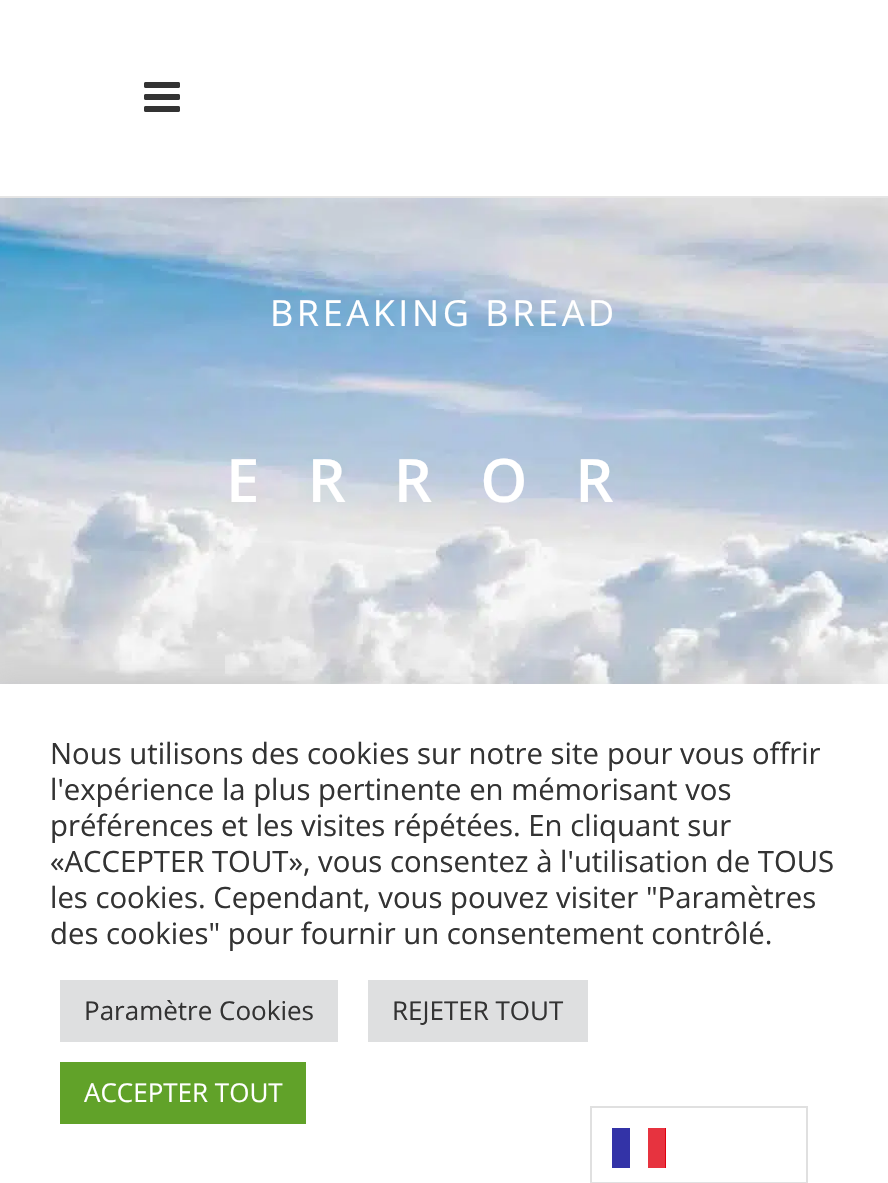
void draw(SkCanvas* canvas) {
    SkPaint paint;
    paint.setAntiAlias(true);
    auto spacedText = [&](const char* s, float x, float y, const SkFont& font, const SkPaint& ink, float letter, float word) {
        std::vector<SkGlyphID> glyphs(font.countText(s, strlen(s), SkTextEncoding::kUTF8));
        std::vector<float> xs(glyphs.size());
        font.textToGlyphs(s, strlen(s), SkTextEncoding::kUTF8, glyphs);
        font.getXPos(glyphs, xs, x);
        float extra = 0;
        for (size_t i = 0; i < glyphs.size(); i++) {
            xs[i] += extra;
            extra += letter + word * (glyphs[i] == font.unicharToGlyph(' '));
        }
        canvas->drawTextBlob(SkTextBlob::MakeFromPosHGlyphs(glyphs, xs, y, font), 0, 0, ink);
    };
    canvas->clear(0xFFFFFFFF);
    paint.setColor(0xFFE5E5E5);
    canvas->drawRect(SkRect::MakeXYWH(0, 196, 888, 2), paint);
    canvas->drawImageRect(SkImages::DeferredFromEncodedData(SkData::MakeFromFileName("img1.png")), SkRect::MakeXYWH(144, 82, 36, 30), SkSamplingOptions());
    canvas->drawImageRect(SkImages::DeferredFromEncodedData(SkData::MakeFromFileName("img2.png")), SkRect::MakeXYWH(0, 198, 888, 486), SkSamplingOptions());
    SkFont font1(fontMgr->matchFamilyStyle("Open Sans", SkFontStyle::Normal()), 36);
    font1.setSubpixel(true);
    paint.setColor(0xFFFFFFFF);
    spacedText("BREAKING BREAD", 270, 326, font1, paint, 3.6f, 0);
    SkFont font2(fontMgr->matchFamilyStyle("Open Sans", SkFontStyle(600, SkFontStyle::kNormal_Width, SkFontStyle::kUpright_Slant)), 60);
    font2.setSubpixel(true);
    spacedText("ERROR", 226, 502, font2, paint, 48, 0);
    paint.setColor(0x4DACABAB);
    paint.setMaskFilter(SkMaskFilter::MakeBlur(kNormal_SkBlurStyle, 10));
    canvas->drawRect(SkRect::MakeXYWH(0, 682, 888, 500), paint);
    paint.setMaskFilter(nullptr);
    paint.setColor(0xFFFFFFFF);
    canvas->drawRect(SkRect::MakeXYWH(0, 684, 888, 499), paint);
    SkFont font3(fontMgr->matchFamilyStyle("Open Sans", SkFontStyle::Normal()), 29.3f);
    font3.setSubpixel(true);
    paint.setColor(0xFF333333);
    canvas->drawString("Nous utilisons des cookies sur notre site", 50, 764, font3, paint);
    canvas->drawString("pour vous offrir", 607, 764, font3, paint);
    canvas->drawString("l'expérience la plus pertinente en mémorisant vos", 50, 800, font3, paint);
    canvas->drawString("préférences et les visites répétées. En cliquant sur", 50, 836, font3, paint);
    canvas->drawString("«ACCEPTER TOUT», vous consentez à l'utilisation de TOUS", 50, 872, font3, paint);
    canvas->drawString("les cookies. Cependant, vous pouvez visiter \"Paramètres", 50, 908, font3, paint);
    canvas->drawString("des cookies\" pour fournir un consentement contrôlé.", 50, 944, font3, paint);
    paint.setColor(0xFFDEDFE0);
    canvas->drawRect(SkRect::MakeXYWH(60, 980, 278, 62), paint);
    SkFont font4(fontMgr->matchFamilyStyle("Open Sans", SkFontStyle::Normal()), 26);
    font4.setSubpixel(true);
    paint.setColor(0xFF333333);
    canvas->drawString("Paramètre Cookies", 84, 1020, font4, paint);
    paint.setColor(0xFFDEDFE0);
    canvas->drawRect(SkRect::MakeXYWH(368, 980, 220, 62), paint);
    paint.setColor(0xFF333333);
    canvas->drawString("REJETER TOUT", 392, 1020, font4, paint);
    paint.setColor(0xFF61A229);
    canvas->drawRect(SkRect::MakeXYWH(60, 1062, 246, 62), paint);
    paint.setColor(0xFFFFFFFF);
    canvas->drawString("ACCEPTER TOUT", 84, 1102, font4, paint);
    paint.setStyle(SkPaint::kStroke_Style);
    paint.setStrokeWidth(2);
    paint.setColor(0xFFE0E0E0);
    canvas->drawRect(SkRect::MakeXYWH(591, 1107, 216, 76), paint);
    paint.setStyle(SkPaint::kFill_Style);
    paint.setColor(0xFF000091);
    canvas->drawRect(SkRect::MakeXYWH(612, 1128, 18, 40), paint);
    paint.setColor(0xFFE1000F);
    canvas->drawRect(SkRect::MakeXYWH(648, 1128, 18, 40), paint);
    paint.setColor(0x33FFFFFF);
    canvas->drawRect(SkRect::MakeXYWH(612, 1128, 53, 40), paint);
}
